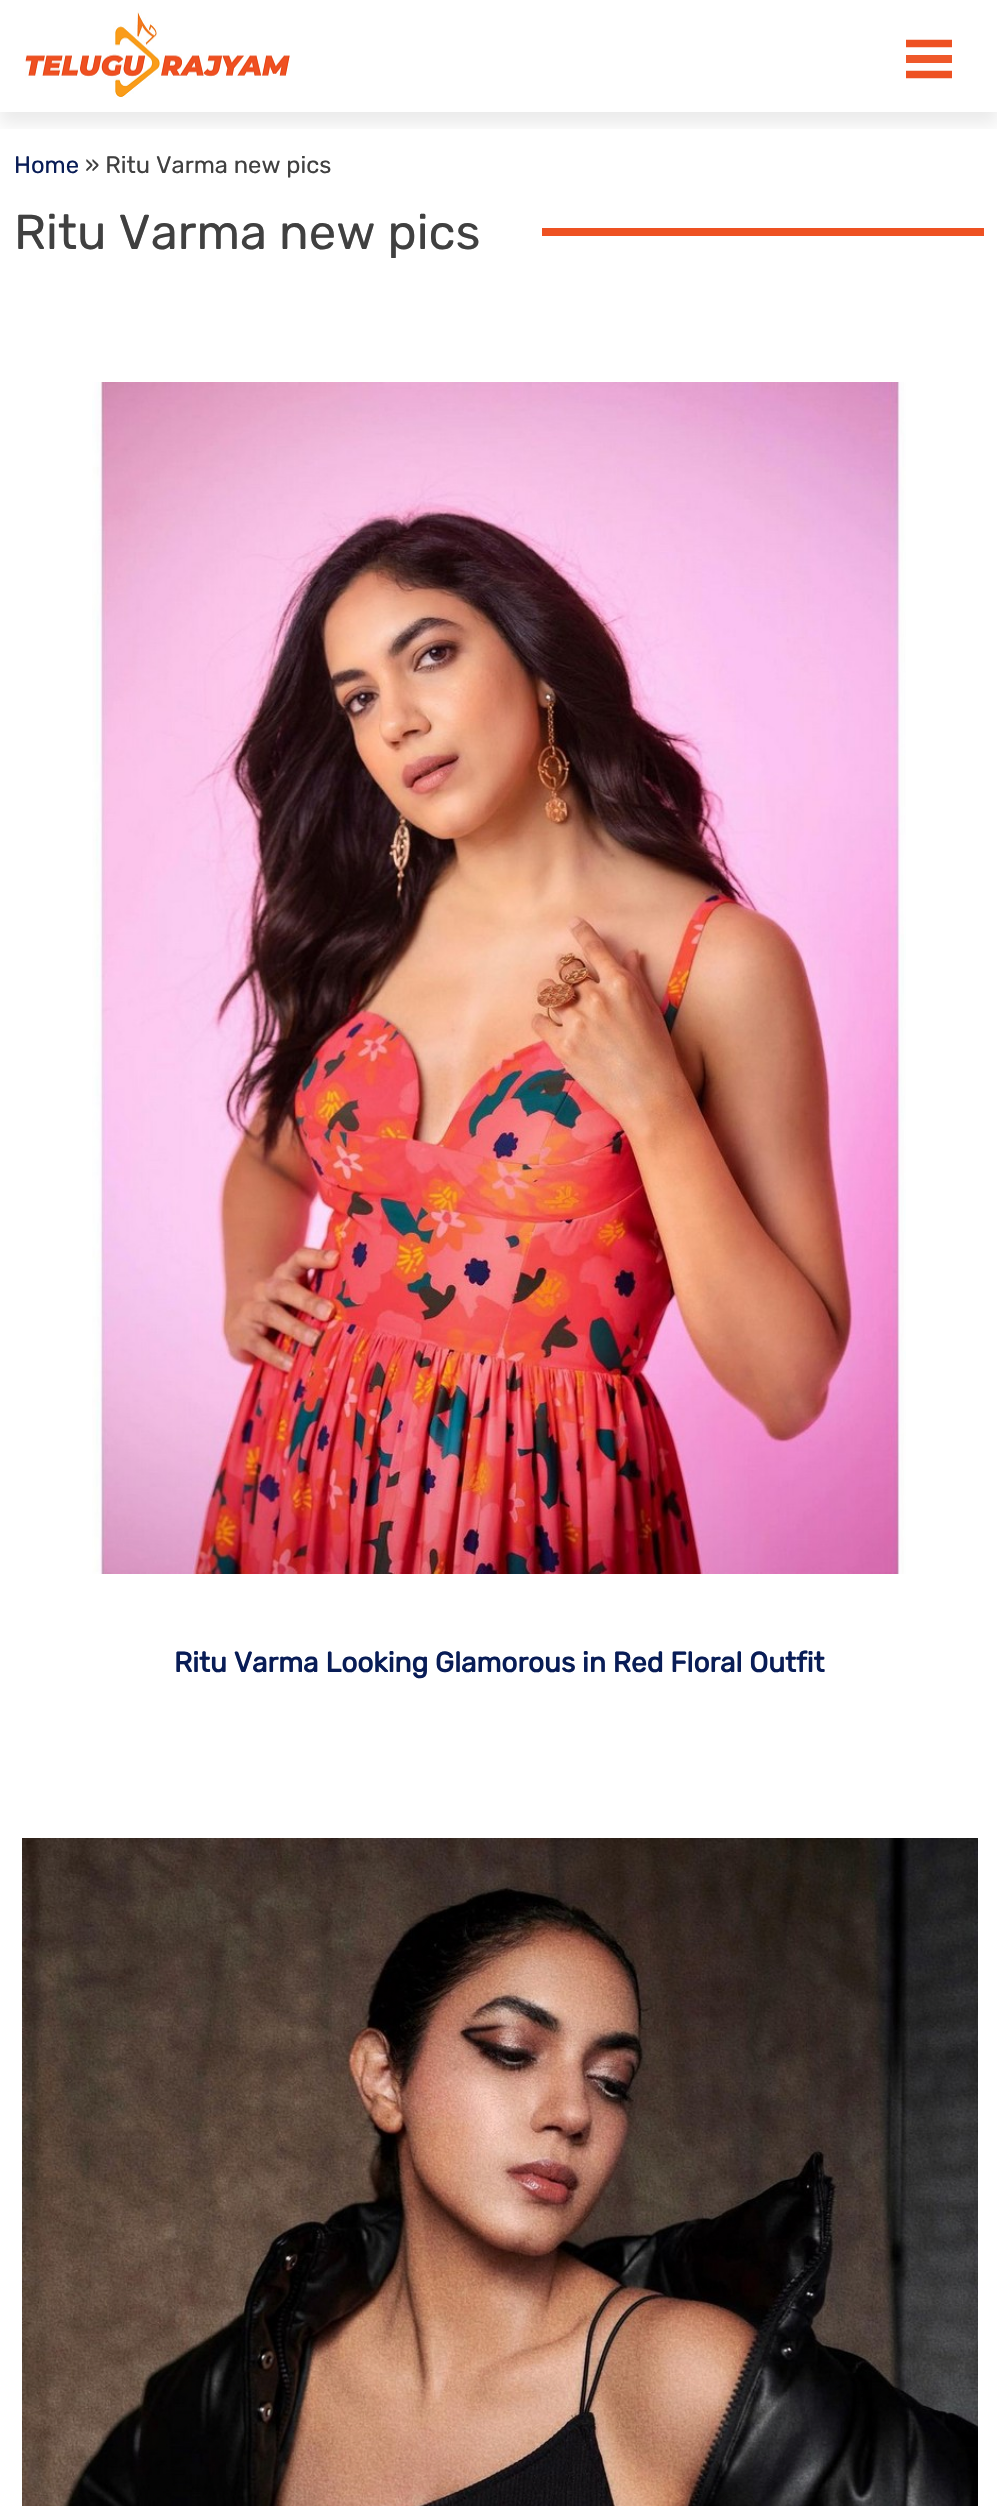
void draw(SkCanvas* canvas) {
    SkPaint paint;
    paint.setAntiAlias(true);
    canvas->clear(0xFFFFFFFF);
    canvas->save();
    canvas->clipRect(SkRect::MakeXYWH(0, 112, 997, 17));
    paint.setColor(0x14000000);
    paint.setMaskFilter(SkMaskFilter::MakeBlur(kNormal_SkBlurStyle, 8));
    canvas->drawRect(SkRect::MakeXYWH(0, 22, 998, 102), paint);
    paint.setMaskFilter(nullptr);
    canvas->restore();
    canvas->drawImageRect(SkImages::DeferredFromEncodedData(SkData::MakeFromFileName("img1.png")), SkRect::MakeXYWH(25, 10, 265, 88), SkSamplingOptions());
    paint.setStyle(SkPaint::kStroke_Style);
    paint.setStrokeWidth(7.7f);
    paint.setColor(0xFFEE5122);
    canvas->drawPath(SkPathBuilder().moveTo(906, 43.5f).lineTo(952, 43.5f).detach(), paint);
    paint.setStyle(SkPaint::kFill_Style);
    paint.setColor(0xFFEF582A);
    canvas->drawRect(SkRect::MakeXYWH(906, 55, 46, 8), paint);
    paint.setStyle(SkPaint::kStroke_Style);
    paint.setColor(0xFFEE5122);
    canvas->drawPath(SkPathBuilder().moveTo(906, 74.5f).lineTo(952, 74.5f).detach(), paint);
    SkFont font1(fontMgr->matchFamilyStyle("Rubik", SkFontStyle(300, SkFontStyle::kNormal_Width, SkFontStyle::kUpright_Slant)), 23.75f);
    font1.setSubpixel(true);
    paint.setStyle(SkPaint::kFill_Style);
    paint.setColor(0xFF081C56);
    canvas->drawString("Home", 14, 173, font1, paint);
    paint.setColor(0xFF404040);
    canvas->drawString("» Ritu Varma new pics", 85, 173, font1, paint);
    canvas->save();
    canvas->clipRect(SkRect::MakeXYWH(14, 210, 970, 48));
    SkFont font2(fontMgr->matchFamilyStyle("Rubik", SkFontStyle(300, SkFontStyle::kNormal_Width, SkFontStyle::kUpright_Slant)), 49);
    font2.setSubpixel(true);
    canvas->drawString("Ritu Varma new pics", 14, 249, font2, paint);
    canvas->restore();
    paint.setColor(0xFFEE5122);
    canvas->drawRect(SkRect::MakeXYWH(542, 228, 442, 8), paint);
    canvas->drawImageRect(SkImages::DeferredFromEncodedData(SkData::MakeFromFileName("img2.png")), SkRect::MakeXYWH(92, 382, 814, 1192), SkSamplingOptions());
    SkFont font3(fontMgr->matchFamilyStyle("Rubik", SkFontStyle::Bold()), 28);
    font3.setSubpixel(true);
    paint.setColor(0xFF081C56);
    canvas->drawString("Ritu Varma Looking Glamorous in Red Floral Outfit", 174, 1672, font3, paint);
    canvas->drawImageRect(SkImages::DeferredFromEncodedData(SkData::MakeFromFileName("img3.png")), SkRect::MakeXYWH(22, 1838, 956, 668), SkSamplingOptions());
}
